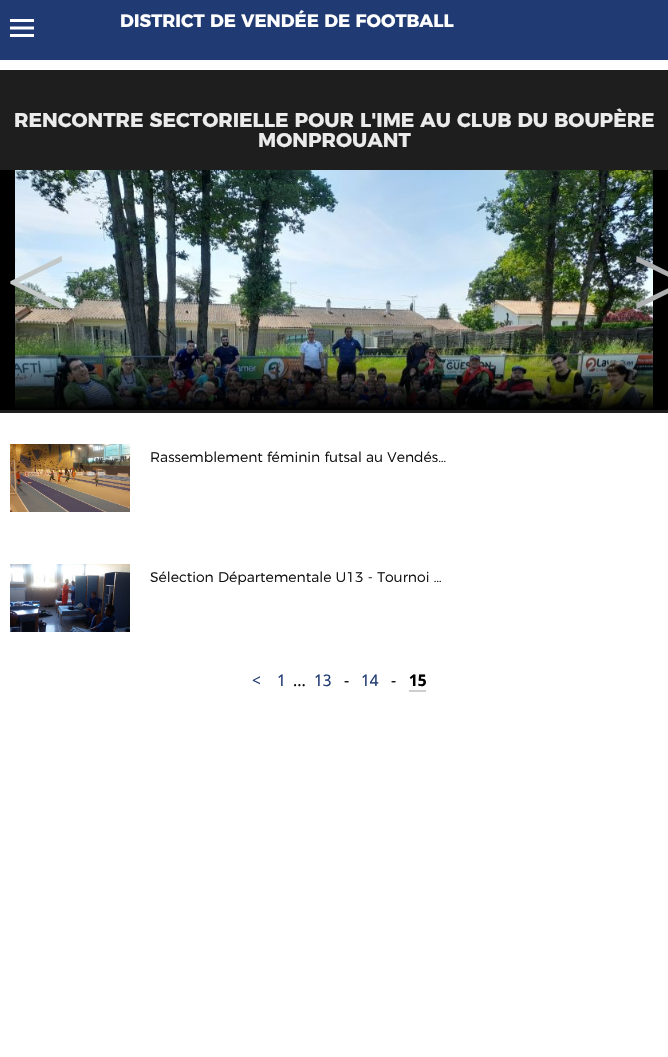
void draw(SkCanvas* canvas) {
    SkPaint paint;
    paint.setAntiAlias(true);
    auto spacedText = [&](const char* s, float x, float y, const SkFont& font, const SkPaint& ink, float letter, float word) {
        std::vector<SkGlyphID> glyphs(font.countText(s, strlen(s), SkTextEncoding::kUTF8));
        std::vector<float> xs(glyphs.size());
        font.textToGlyphs(s, strlen(s), SkTextEncoding::kUTF8, glyphs);
        font.getXPos(glyphs, xs, x);
        float extra = 0;
        for (size_t i = 0; i < glyphs.size(); i++) {
            xs[i] += extra;
            extra += letter + word * (glyphs[i] == font.unicharToGlyph(' '));
        }
        canvas->drawTextBlob(SkTextBlob::MakeFromPosHGlyphs(glyphs, xs, y, font), 0, 0, ink);
    };
    canvas->clear(0xFFFFFFFF);
    paint.setColor(0xFF203A73);
    canvas->drawRect(SkRect::MakeXYWH(0, 0, 668, 60), paint);
    canvas->drawImageRect(SkImages::DeferredFromEncodedData(SkData::MakeFromFileName("img1.png")), SkRect::MakeXYWH(10, 19, 24, 18), SkSamplingOptions());
    SkFont font1(fontMgr->matchFamilyStyle("Montserrat", SkFontStyle::Bold()), 18);
    font1.setSubpixel(true);
    paint.setColor(0xFFFFFFFF);
    canvas->drawString("DISTRICT DE VENDÉE DE FOOTBALL", 120, 27, font1, paint);
    paint.setColor(0xFF1E1E1E);
    canvas->drawRect(SkRect::MakeXYWH(0, 70, 668, 343), paint);
    SkFont font2(fontMgr->matchFamilyStyle("Montserrat", SkFontStyle::Bold()), 20);
    font2.setSubpixel(true);
    paint.setColor(0xFFEBEBEB);
    canvas->drawString("RENCONTRE SECTORIELLE POUR L'IME AU CLUB DU BOUPÈRE", 14, 127, font2, paint);
    canvas->drawString("MONPROUANT", 258, 147, font2, paint);
    paint.setColor(0xFF000000);
    canvas->drawRect(SkRect::MakeXYWH(0, 170, 668, 240), paint);
    canvas->drawImageRect(SkImages::DeferredFromEncodedData(SkData::MakeFromFileName("img2.png")), SkRect::MakeXYWH(15, 170, 638, 240), SkSamplingOptions());
    {
        const SkColor colors[] = {0x00000000, 0xFF000000};
        const float stops[] = {0, 1};
        const SkPoint ends[] = {{349, 350}, {349, 410}};
        paint.setShader(SkGradientShader::MakeLinear(ends, colors, stops, 2, SkTileMode::kClamp));
        paint.setAlpha(255);
    }
    canvas->drawRect(SkRect::MakeXYWH(15, 351, 638, 59), paint);
    SkFont font3(fontMgr->matchFamilyStyle("Liberation Serif", SkFontStyle::Normal()), 110);
    font3.setSubpixel(true);
    paint.setShader(nullptr);
    paint.setColor(0xFFC3C8C8);
    spacedText("<", 5, 319, font3, paint, -31, 0);
    paint.setColor(0xFFACAEAF);
    spacedText(">", 631, 319, font3, paint, -31, 0);
    canvas->drawImageRect(SkImages::DeferredFromEncodedData(SkData::MakeFromFileName("img3.png")), SkRect::MakeXYWH(10, 444, 120, 68), SkSamplingOptions());
    SkFont font4(fontMgr->matchFamilyStyle("Montserrat", SkFontStyle(300, SkFontStyle::kNormal_Width, SkFontStyle::kUpright_Slant)), 14);
    font4.setSubpixel(true);
    paint.setColor(0xFF111111);
    canvas->drawString("Rassemblement féminin futsal au Vendés…", 150, 462, font4, paint);
    canvas->drawImageRect(SkImages::DeferredFromEncodedData(SkData::MakeFromFileName("img4.png")), SkRect::MakeXYWH(10, 564, 120, 68), SkSamplingOptions());
    canvas->drawString("Sélection Départementale U13 - Tournoi …", 150, 582, font4, paint);
    SkFont font5(fontMgr->matchFamilyStyle("Droid Sans", SkFontStyle::Normal()), 16);
    font5.setSubpixel(true);
    paint.setColor(0xFF203A73);
    canvas->drawString("<", 252, 686, font5, paint);
    canvas->drawString("1", 277, 686, font5, paint);
    canvas->drawString("13", 314, 686, font5, paint);
    paint.setColor(0xFF111111);
    canvas->drawString("-", 344, 686, font5, paint);
    paint.setColor(0xFF203A73);
    canvas->drawString("14", 361, 686, font5, paint);
    paint.setColor(0xFF111111);
    canvas->drawString("-", 391, 686, font5, paint);
    SkFont font6(fontMgr->matchFamilyStyle("Droid Sans", SkFontStyle::Bold()), 16);
    font6.setSubpixel(true);
    paint.setColor(0xFF000000);
    canvas->drawString("15", 409, 686, font6, paint);
    paint.setColor(0xFFCECECE);
    canvas->drawRect(SkRect::MakeXYWH(409, 690, 17, 2), paint);
    paint.setColor(0xFF111111);
    canvas->drawString("...", 293, 686, font5, paint);
}
